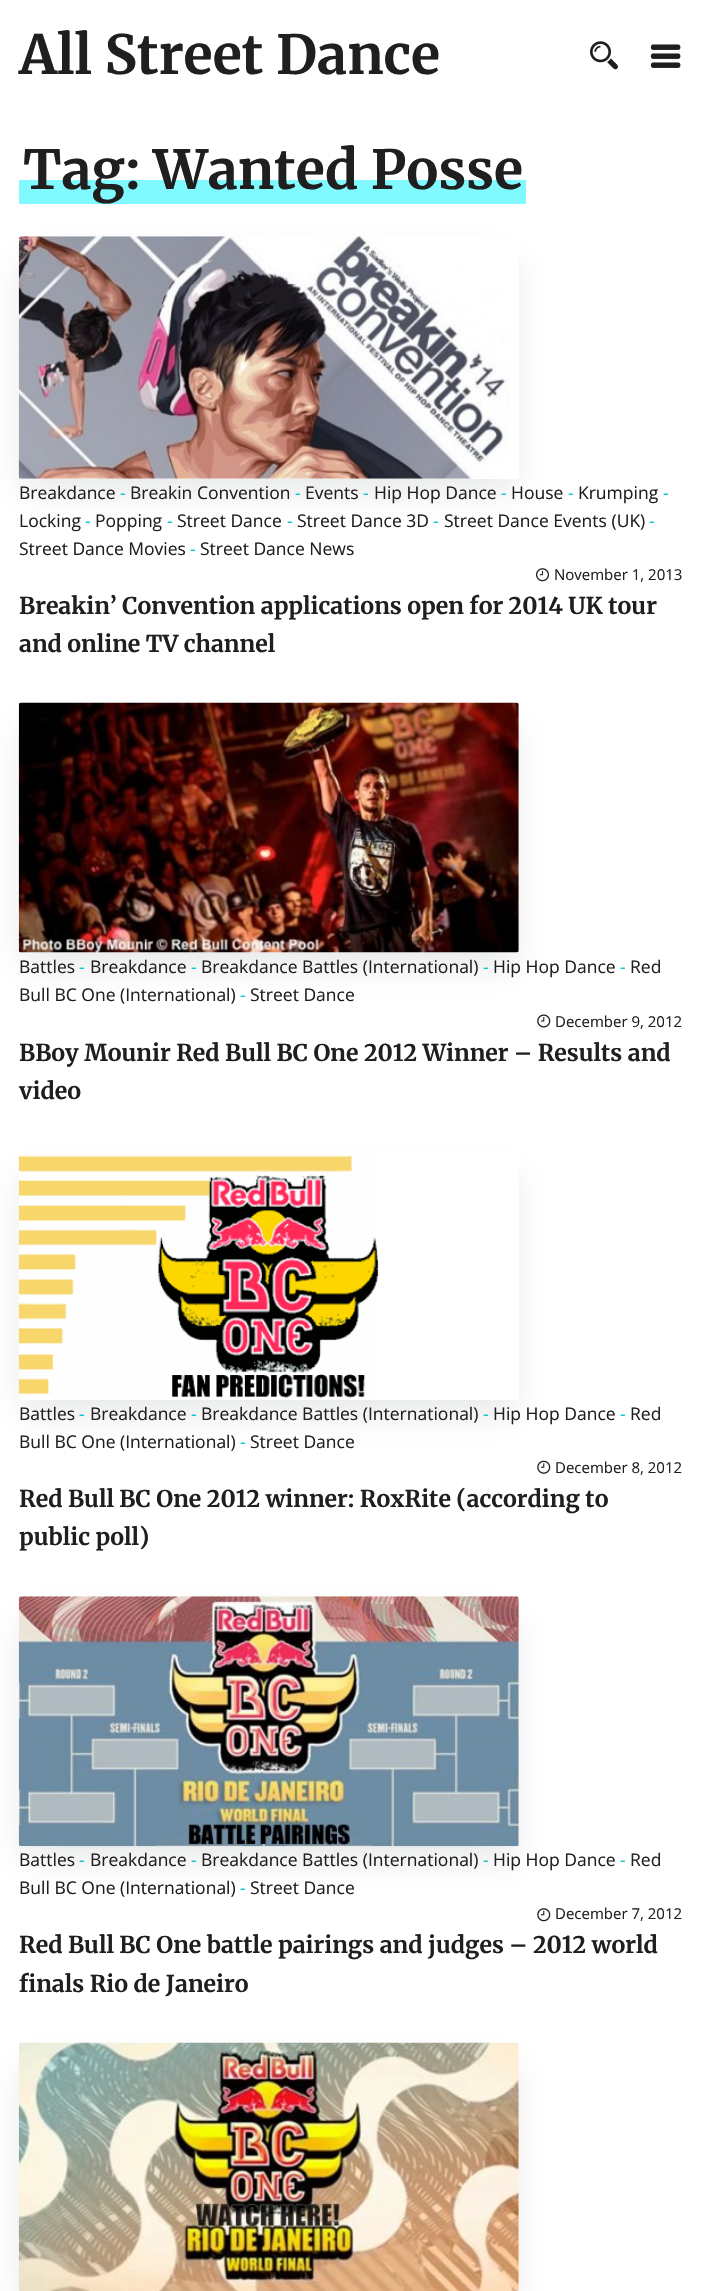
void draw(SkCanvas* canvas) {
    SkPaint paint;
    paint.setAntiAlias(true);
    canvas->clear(0xFFFFFFFF);
    SkFont font1(fontMgr->matchFamilyStyle("Merriweather", SkFontStyle::Bold()), 53.75f);
    font1.setSubpixel(true);
    paint.setColor(0xFF1F1F1F);
    canvas->drawString("All Street Dance", 19, 74, font1, paint);
    canvas->drawImageRect(SkImages::DeferredFromEncodedData(SkData::MakeFromFileName("img1.png")), SkRect::MakeXYWH(590, 41, 28, 29), SkSamplingOptions());
    canvas->drawImageRect(SkImages::DeferredFromEncodedData(SkData::MakeFromFileName("img2.png")), SkRect::MakeXYWH(650, 44, 31, 24), SkSamplingOptions());
    paint.setColor(0xFF80FAFF);
    canvas->drawRect(SkRect::MakeXYWH(19, 180, 507, 24), paint);
    paint.setColor(0xFF1F1F1F);
    canvas->drawString("Tag: Wanted Posse", 23, 189, font1, paint);
    canvas->save();
    canvas->clipPath(SkPathBuilder(SkPathFillType::kEvenOdd).moveTo(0, 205).lineTo(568, 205).lineTo(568, 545).lineTo(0, 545).close().moveTo(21.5f, 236).lineTo(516.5f, 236).cubicTo(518, 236, 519, 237, 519, 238.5f).lineTo(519, 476.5f).cubicTo(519, 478, 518, 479, 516.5f, 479).lineTo(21.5f, 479).cubicTo(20, 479, 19, 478, 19, 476.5f).lineTo(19, 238.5f).cubicTo(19, 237, 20, 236, 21.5f, 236).close().detach(), true);
    paint.setColor(0x1A0E1114);
    paint.setMaskFilter(SkMaskFilter::MakeBlur(kNormal_SkBlurStyle, 17.5f));
    canvas->drawRect(SkRect::MakeXYWH(24, 259, 490, 232), paint);
    paint.setMaskFilter(nullptr);
    canvas->restore();
    canvas->drawImageRect(SkImages::DeferredFromEncodedData(SkData::MakeFromFileName("img3.png")), SkRect::MakeXYWH(18, 236, 492, 243), SkSamplingOptions());
    SkFont font2(fontMgr->matchFamilyStyle("Open Sans", SkFontStyle::Normal()), 17.5f);
    font2.setSubpixel(true);
    paint.setColor(0xFF1F1F1F);
    canvas->drawString("Breakdance", 19, 499, font2, paint);
    paint.setColor(0xFF00C4CC);
    canvas->drawString("-", 120, 499, font2, paint);
    paint.setColor(0xFF1F1F1F);
    canvas->drawString("Breakin Convention", 130, 499, font2, paint);
    paint.setColor(0xFF00C4CC);
    canvas->drawString("-", 295, 499, font2, paint);
    paint.setColor(0xFF1F1F1F);
    canvas->drawString("Events", 305, 499, font2, paint);
    paint.setColor(0xFF00C4CC);
    canvas->drawString("-", 363, 499, font2, paint);
    paint.setColor(0xFF1F1F1F);
    canvas->drawString("Hip Hop Dance", 374, 499, font2, paint);
    paint.setColor(0xFF00C4CC);
    canvas->drawString("-", 501, 499, font2, paint);
    paint.setColor(0xFF1F1F1F);
    canvas->drawString("House", 511, 499, font2, paint);
    paint.setColor(0xFF00C4CC);
    canvas->drawString("-", 568, 499, font2, paint);
    paint.setColor(0xFF1F1F1F);
    canvas->drawString("Krumping", 578, 499, font2, paint);
    paint.setColor(0xFF00C4CC);
    canvas->drawString("-", 663, 499, font2, paint);
    paint.setColor(0xFF1F1F1F);
    canvas->drawString("Locking", 19, 527, font2, paint);
    paint.setColor(0xFF00C4CC);
    canvas->drawString("-", 85, 527, font2, paint);
    paint.setColor(0xFF1F1F1F);
    canvas->drawString("Popping", 95, 527, font2, paint);
    paint.setColor(0xFF00C4CC);
    canvas->drawString("-", 167, 527, font2, paint);
    paint.setColor(0xFF1F1F1F);
    canvas->drawString("Street Dance", 177, 527, font2, paint);
    paint.setColor(0xFF00C4CC);
    canvas->drawString("-", 287, 527, font2, paint);
    paint.setColor(0xFF1F1F1F);
    canvas->drawString("Street Dance 3D", 297, 527, font2, paint);
    paint.setColor(0xFF00C4CC);
    canvas->drawString("-", 433, 527, font2, paint);
    paint.setColor(0xFF1F1F1F);
    canvas->drawString("Street Dance Events (UK)", 444, 527, font2, paint);
    paint.setColor(0xFF00C4CC);
    canvas->drawString("-", 649, 527, font2, paint);
    paint.setColor(0xFF1F1F1F);
    canvas->drawString("Street Dance Movies", 19, 555, font2, paint);
    paint.setColor(0xFF00C4CC);
    canvas->drawString("-", 190, 555, font2, paint);
    paint.setColor(0xFF1F1F1F);
    canvas->drawString("Street Dance News", 200, 555, font2, paint);
    canvas->drawImageRect(SkImages::DeferredFromEncodedData(SkData::MakeFromFileName("img4.png")), SkRect::MakeXYWH(535, 568, 14, 14), SkSamplingOptions());
    SkFont font3(fontMgr->matchFamilyStyle("Open Sans", SkFontStyle::Normal()), 15);
    font3.setSubpixel(true);
    canvas->drawString("November 1, 2013", 554, 580, font3, paint);
    SkFont font4(fontMgr->matchFamilyStyle("Merriweather", SkFontStyle::Bold()), 23.1f);
    font4.setSubpixel(true);
    canvas->drawString("Breakin’ Convention applications open for 2014 UK tour", 19, 614, font4, paint);
    canvas->drawString("and online TV channel", 19, 652, font4, paint);
    paint.setColor(0x1A0E1114);
    paint.setMaskFilter(SkMaskFilter::MakeBlur(kNormal_SkBlurStyle, 17.5f));
    canvas->drawRect(SkRect::MakeXYWH(24, 725, 490, 240), paint);
    paint.setMaskFilter(nullptr);
    canvas->drawImageRect(SkImages::DeferredFromEncodedData(SkData::MakeFromFileName("img5.png")), SkRect::MakeXYWH(18, 702, 501, 251), SkSamplingOptions());
    paint.setColor(0xFF1F1F1F);
    canvas->drawString("Battles", 19, 973, font2, paint);
    paint.setColor(0xFF00C4CC);
    canvas->drawString("-", 79, 973, font2, paint);
    paint.setColor(0xFF1F1F1F);
    canvas->drawString("Breakdance", 90, 973, font2, paint);
    paint.setColor(0xFF00C4CC);
    canvas->drawString("-", 191, 973, font2, paint);
    paint.setColor(0xFF1F1F1F);
    canvas->drawString("Breakdance Battles (International)", 201, 973, font2, paint);
    paint.setColor(0xFF00C4CC);
    canvas->drawString("-", 483, 973, font2, paint);
    paint.setColor(0xFF1F1F1F);
    canvas->drawString("Hip Hop Dance", 493, 973, font2, paint);
    paint.setColor(0xFF00C4CC);
    canvas->drawString("-", 620, 973, font2, paint);
    paint.setColor(0xFF1F1F1F);
    canvas->drawString("Red", 630, 973, font2, paint);
    canvas->drawString("Bull BC One (International)", 19, 1001, font2, paint);
    paint.setColor(0xFF00C4CC);
    canvas->drawString("-", 240, 1001, font2, paint);
    paint.setColor(0xFF1F1F1F);
    canvas->drawString("Street Dance", 250, 1001, font2, paint);
    canvas->drawImageRect(SkImages::DeferredFromEncodedData(SkData::MakeFromFileName("img6.png")), SkRect::MakeXYWH(537, 1014, 14, 14), SkSamplingOptions());
    canvas->drawString("December 9, 2012", 555, 1027, font3, paint);
    canvas->drawString("BBoy Mounir Red Bull BC One 2012 Winner – Results and", 19, 1061, font4, paint);
    canvas->drawString("video", 19, 1099, font4, paint);
    canvas->save();
    canvas->clipPath(SkPathBuilder(SkPathFillType::kEvenOdd).moveTo(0, 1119).lineTo(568, 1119).lineTo(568, 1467).lineTo(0, 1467).close().moveTo(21.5f, 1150).lineTo(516.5f, 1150).cubicTo(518, 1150, 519, 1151, 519, 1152.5f).lineTo(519, 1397.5f).cubicTo(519, 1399, 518, 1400, 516.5f, 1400).lineTo(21.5f, 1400).cubicTo(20, 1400, 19, 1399, 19, 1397.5f).lineTo(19, 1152.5f).cubicTo(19, 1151, 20, 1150, 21.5f, 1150).close().detach(), true);
    paint.setColor(0x1A0E1114);
    paint.setMaskFilter(SkMaskFilter::MakeBlur(kNormal_SkBlurStyle, 17.5f));
    canvas->drawRect(SkRect::MakeXYWH(24, 1173, 490, 240), paint);
    paint.setMaskFilter(nullptr);
    canvas->restore();
    canvas->drawImageRect(SkImages::DeferredFromEncodedData(SkData::MakeFromFileName("img7.png")), SkRect::MakeXYWH(18, 1155, 361, 243), SkSamplingOptions());
    paint.setColor(0xFF1F1F1F);
    canvas->drawString("Battles", 19, 1420, font2, paint);
    paint.setColor(0xFF00C4CC);
    canvas->drawString("-", 79, 1420, font2, paint);
    paint.setColor(0xFF1F1F1F);
    canvas->drawString("Breakdance", 90, 1420, font2, paint);
    paint.setColor(0xFF00C4CC);
    canvas->drawString("-", 191, 1420, font2, paint);
    paint.setColor(0xFF1F1F1F);
    canvas->drawString("Breakdance Battles (International)", 201, 1420, font2, paint);
    paint.setColor(0xFF00C4CC);
    canvas->drawString("-", 483, 1420, font2, paint);
    paint.setColor(0xFF1F1F1F);
    canvas->drawString("Hip Hop Dance", 493, 1420, font2, paint);
    paint.setColor(0xFF00C4CC);
    canvas->drawString("-", 620, 1420, font2, paint);
    paint.setColor(0xFF1F1F1F);
    canvas->drawString("Red", 630, 1420, font2, paint);
    canvas->drawString("Bull BC One (International)", 19, 1448, font2, paint);
    paint.setColor(0xFF00C4CC);
    canvas->drawString("-", 240, 1448, font2, paint);
    paint.setColor(0xFF1F1F1F);
    canvas->drawString("Street Dance", 250, 1448, font2, paint);
    canvas->drawImageRect(SkImages::DeferredFromEncodedData(SkData::MakeFromFileName("img8.png")), SkRect::MakeXYWH(537, 1460, 14, 14), SkSamplingOptions());
    canvas->drawString("December 8, 2012", 555, 1473, font3, paint);
    canvas->drawString("Red Bull BC One 2012 winner: RoxRite (according to", 19, 1507, font4, paint);
    canvas->drawString("public poll)", 19, 1545, font4, paint);
    paint.setColor(0x1A0E1114);
    paint.setMaskFilter(SkMaskFilter::MakeBlur(kNormal_SkBlurStyle, 17.5f));
    canvas->drawRect(SkRect::MakeXYWH(24, 1619, 490, 240), paint);
    paint.setMaskFilter(nullptr);
    canvas->drawImageRect(SkImages::DeferredFromEncodedData(SkData::MakeFromFileName("img9.png")), SkRect::MakeXYWH(18, 1596, 501, 251), SkSamplingOptions());
    paint.setColor(0xFF1F1F1F);
    canvas->drawString("Battles", 19, 1866, font2, paint);
    paint.setColor(0xFF00C4CC);
    canvas->drawString("-", 79, 1866, font2, paint);
    paint.setColor(0xFF1F1F1F);
    canvas->drawString("Breakdance", 90, 1866, font2, paint);
    paint.setColor(0xFF00C4CC);
    canvas->drawString("-", 191, 1866, font2, paint);
    paint.setColor(0xFF1F1F1F);
    canvas->drawString("Breakdance Battles (International)", 201, 1866, font2, paint);
    paint.setColor(0xFF00C4CC);
    canvas->drawString("-", 483, 1866, font2, paint);
    paint.setColor(0xFF1F1F1F);
    canvas->drawString("Hip Hop Dance", 493, 1866, font2, paint);
    paint.setColor(0xFF00C4CC);
    canvas->drawString("-", 620, 1866, font2, paint);
    paint.setColor(0xFF1F1F1F);
    canvas->drawString("Red", 630, 1866, font2, paint);
    canvas->drawString("Bull BC One (International)", 19, 1894, font2, paint);
    paint.setColor(0xFF00C4CC);
    canvas->drawString("-", 240, 1894, font2, paint);
    paint.setColor(0xFF1F1F1F);
    canvas->drawString("Street Dance", 250, 1894, font2, paint);
    canvas->drawImageRect(SkImages::DeferredFromEncodedData(SkData::MakeFromFileName("img10.png")), SkRect::MakeXYWH(537, 1908, 14, 14), SkSamplingOptions());
    canvas->drawString("December 7, 2012", 555, 1919, font3, paint);
    canvas->drawString("Red Bull BC One battle pairings and judges – 2012 world", 19, 1953, font4, paint);
    canvas->drawString("finals Rio de Janeiro", 19, 1992, font4, paint);
    paint.setColor(0x1A0E1114);
    paint.setMaskFilter(SkMaskFilter::MakeBlur(kNormal_SkBlurStyle, 17.5f));
    canvas->drawRect(SkRect::MakeXYWH(24, 2065, 490, 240), paint);
    paint.setMaskFilter(nullptr);
    canvas->drawImageRect(SkImages::DeferredFromEncodedData(SkData::MakeFromFileName("img11.png")), SkRect::MakeXYWH(18, 2042, 501, 249), SkSamplingOptions());
}
